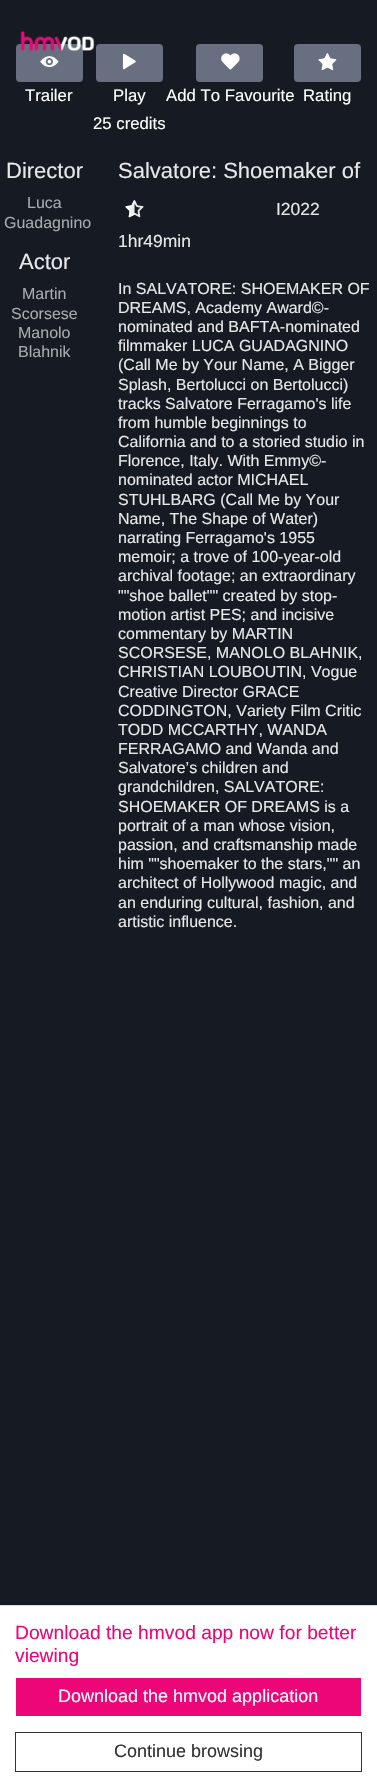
void draw(SkCanvas* canvas) {
    SkPaint paint;
    paint.setAntiAlias(true);
    canvas->clear(0xFF161A23);
    paint.setColor(0xFF676F80);
    canvas->drawRoundRect(SkRect::MakeXYWH(16, 44, 67, 38), 4, 4, paint);
    canvas->drawImageRect(SkImages::DeferredFromEncodedData(SkData::MakeFromFileName("img1.png")), SkRect::MakeXYWH(20, 30, 75, 22), SkSamplingOptions());
    canvas->drawImageRect(SkImages::DeferredFromEncodedData(SkData::MakeFromFileName("img2.png")), SkRect::MakeXYWH(40, 56, 19, 12), SkSamplingOptions());
    SkFont font1(fontMgr->matchFamilyStyle("Liberation Sans", SkFontStyle::Normal()), 16.75f);
    font1.setSubpixel(true);
    paint.setColor(0xFFFFFFFF);
    canvas->drawString("Trailer", 25, 101, font1, paint);
    paint.setColor(0xFF676F80);
    canvas->drawRoundRect(SkRect::MakeXYWH(96, 44, 67, 38), 4, 4, paint);
    canvas->drawImageRect(SkImages::DeferredFromEncodedData(SkData::MakeFromFileName("img3.png")), SkRect::MakeXYWH(122, 53, 14, 17), SkSamplingOptions());
    paint.setColor(0xFFFFFFFF);
    canvas->drawString("Play", 113, 101, font1, paint);
    canvas->drawString("25 credits", 93, 129, font1, paint);
    paint.setColor(0xFF676F80);
    canvas->drawRoundRect(SkRect::MakeXYWH(196, 44, 67, 38), 4, 4, paint);
    canvas->drawImageRect(SkImages::DeferredFromEncodedData(SkData::MakeFromFileName("img4.png")), SkRect::MakeXYWH(221, 53, 19, 17), SkSamplingOptions());
    paint.setColor(0xFFFFFFFF);
    canvas->drawString("Add To Favourite", 166, 101, font1, paint);
    paint.setColor(0xFF676F80);
    canvas->drawRoundRect(SkRect::MakeXYWH(294, 44, 67, 38), 4, 4, paint);
    canvas->drawImageRect(SkImages::DeferredFromEncodedData(SkData::MakeFromFileName("img5.png")), SkRect::MakeXYWH(318, 53, 19, 18), SkSamplingOptions());
    paint.setColor(0xFFFFFFFF);
    canvas->drawString("Rating", 303, 101, font1, paint);
    SkFont font2(fontMgr->matchFamilyStyle("Liberation Sans", SkFontStyle::Normal()), 22);
    font2.setSubpixel(true);
    paint.setColor(0xFFE8E8E9);
    canvas->drawString("Director", 6, 178, font2, paint);
    SkFont font3(fontMgr->matchFamilyStyle("Liberation Sans", SkFontStyle::Normal()), 16);
    font3.setSubpixel(true);
    paint.setColor(0xFFA9AAAE);
    canvas->drawString("Luca", 27, 208, font3, paint);
    canvas->drawString("Guadagnino", 4, 228, font3, paint);
    paint.setColor(0xFFE8E8E9);
    canvas->drawString("Actor", 19, 269, font2, paint);
    paint.setColor(0xFFA9AAAE);
    canvas->drawString("Martin", 22, 299, font3, paint);
    canvas->drawString("Scorsese", 11, 319, font3, paint);
    canvas->drawString("Manolo", 18, 338, font3, paint);
    canvas->drawString("Blahnik", 18, 357, font3, paint);
    paint.setColor(0xFFE8E8E9);
    canvas->drawString("Salvatore: Shoemaker of", 118, 178, font2, paint);
    canvas->drawImageRect(SkImages::DeferredFromEncodedData(SkData::MakeFromFileName("img6.png")), SkRect::MakeXYWH(125, 200, 19, 18), SkSamplingOptions());
    SkFont font4(fontMgr->matchFamilyStyle("Liberation Sans", SkFontStyle::Normal()), 17.5f);
    font4.setSubpixel(true);
    canvas->drawString("I2022", 276, 215, font4, paint);
    canvas->drawString("1hr49min", 118, 247, font4, paint);
    canvas->drawString("In SALVATORE: SHOEMAKER OF", 118, 294, font3, paint);
    canvas->drawString("DREAMS, Academy Award©-", 118, 313, font3, paint);
    canvas->drawString("nominated and BAFTA-nominated", 118, 332, font3, paint);
    canvas->drawString("filmmaker LUCA GUADAGNINO", 118, 351, font3, paint);
    canvas->drawString("(Call Me by Your Name, A Bigger", 118, 370, font3, paint);
    canvas->drawString("Splash, Bertolucci on Bertolucci)", 118, 390, font3, paint);
    canvas->drawString("tracks Salvatore Ferragamo's life", 118, 409, font3, paint);
    canvas->drawString("from humble beginnings to", 118, 428, font3, paint);
    canvas->drawString("California and to a storied studio in", 118, 447, font3, paint);
    canvas->drawString("Florence, Italy. With Emmy©-", 118, 466, font3, paint);
    canvas->drawString("nominated actor MICHAEL", 118, 485, font3, paint);
    canvas->drawString("STUHLBARG (Call Me by Your", 118, 505, font3, paint);
    canvas->drawString("Name, The Shape of Water)", 118, 524, font3, paint);
    canvas->drawString("narrating Ferragamo's 1955", 118, 543, font3, paint);
    canvas->drawString("memoir; a trove of 100-year-old", 118, 562, font3, paint);
    canvas->drawString("archival footage; an extraordinary", 118, 581, font3, paint);
    canvas->drawString("\"\"shoe ballet\"\" created by stop-", 118, 601, font3, paint);
    canvas->drawString("motion artist PES; and incisive", 118, 620, font3, paint);
    canvas->drawString("commentary by MARTIN", 118, 639, font3, paint);
    canvas->drawString("SCORSESE, MANOLO BLAHNIK,", 118, 658, font3, paint);
    canvas->drawString("CHRISTIAN LOUBOUTIN, Vogue", 118, 677, font3, paint);
    canvas->drawString("Creative Director GRACE", 118, 697, font3, paint);
    canvas->drawString("CODDINGTON, Variety Film Critic", 118, 716, font3, paint);
    canvas->drawString("TODD MCCARTHY, WANDA", 118, 735, font3, paint);
    canvas->drawString("FERRAGAMO and Wanda and", 118, 754, font3, paint);
    canvas->drawString("Salvatore’s children and", 118, 773, font3, paint);
    canvas->drawString("grandchildren, SALVATORE:", 118, 792, font3, paint);
    canvas->drawString("SHOEMAKER OF DREAMS is a", 118, 812, font3, paint);
    canvas->drawString("portrait of a man whose vision,", 118, 831, font3, paint);
    canvas->drawString("passion, and craftsmanship made", 118, 850, font3, paint);
    canvas->drawString("him \"\"shoemaker to the stars,\"\" an", 118, 869, font3, paint);
    canvas->drawString("architect of Hollywood magic, and", 118, 888, font3, paint);
    canvas->drawString("an enduring cultural, fashion, and", 118, 908, font3, paint);
    canvas->drawString("artistic influence.", 118, 927, font3, paint);
    paint.setColor(0xFFFFFFFF);
    canvas->drawRect(SkRect::MakeXYWH(0, 1606, 377, 181), paint);
    paint.setColor(0xFFD9D9D9);
    canvas->drawRect(SkRect::MakeXYWH(0, 1605, 377, 1), paint);
    SkFont font5(fontMgr->matchFamilyStyle("Liberation Sans", SkFontStyle::Normal()), 19.25f);
    font5.setSubpixel(true);
    paint.setColor(0xFFEC0677);
    canvas->drawString("Download the hmvod app now for better", 15, 1639, font5, paint);
    canvas->drawString("viewing", 15, 1662, font5, paint);
    canvas->drawRect(SkRect::MakeXYWH(16, 1678, 345, 38), paint);
    SkFont font6(fontMgr->matchFamilyStyle("Liberation Sans", SkFontStyle::Normal()), 18);
    font6.setSubpixel(true);
    paint.setColor(0xFFFFFFFF);
    canvas->drawString("Download the hmvod application", 58, 1702, font6, paint);
    paint.setStyle(SkPaint::kStroke_Style);
    paint.setStrokeWidth(1);
    paint.setColor(0xFF333333);
    canvas->drawRect(SkRect::MakeXYWH(15.5f, 1732.5f, 346, 39), paint);
    paint.setStyle(SkPaint::kFill_Style);
    canvas->drawString("Continue browsing", 114, 1757, font6, paint);
}
